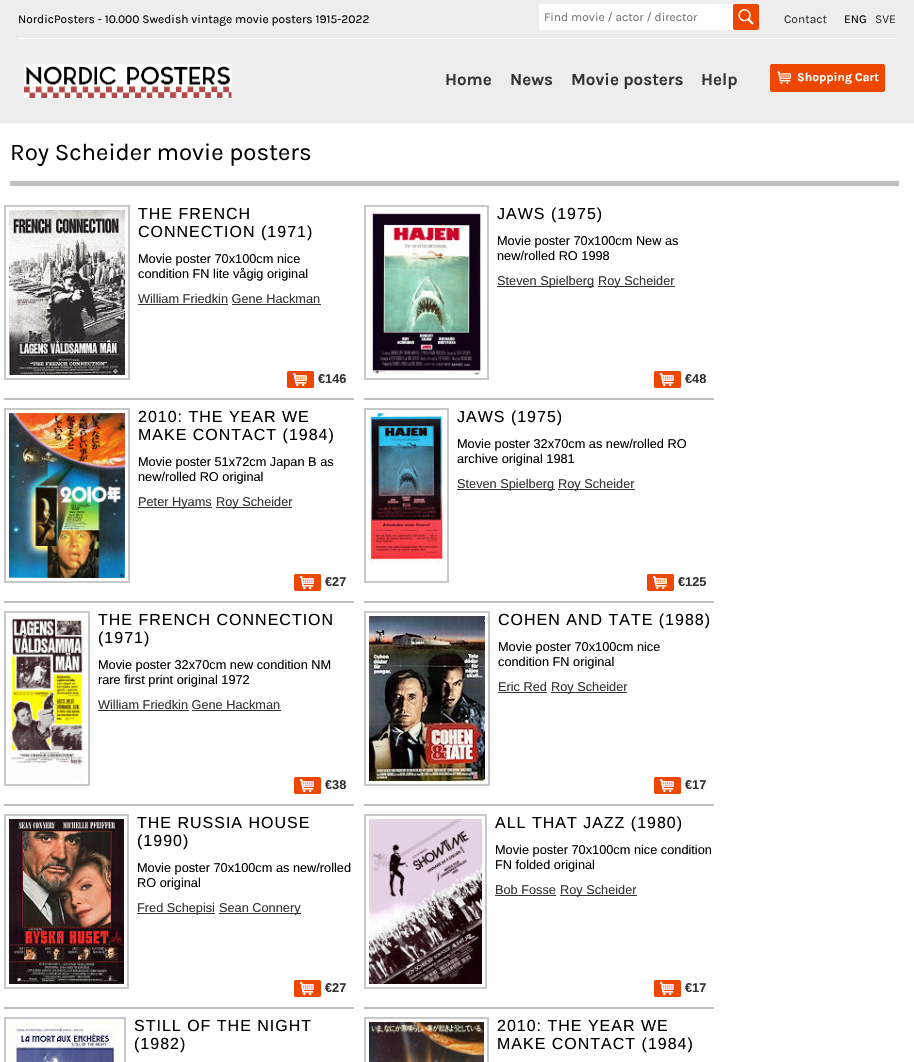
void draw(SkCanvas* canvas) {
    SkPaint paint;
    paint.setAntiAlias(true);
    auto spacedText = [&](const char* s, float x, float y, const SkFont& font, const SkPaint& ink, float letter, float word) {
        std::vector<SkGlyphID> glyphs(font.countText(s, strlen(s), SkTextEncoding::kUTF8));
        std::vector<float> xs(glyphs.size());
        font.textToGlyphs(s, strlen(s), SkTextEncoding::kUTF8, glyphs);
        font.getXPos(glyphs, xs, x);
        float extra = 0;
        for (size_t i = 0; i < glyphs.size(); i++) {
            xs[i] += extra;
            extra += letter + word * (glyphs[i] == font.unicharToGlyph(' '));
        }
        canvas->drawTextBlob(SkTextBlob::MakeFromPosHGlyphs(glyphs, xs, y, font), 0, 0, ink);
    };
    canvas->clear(0xFFFFFFFF);
    paint.setColor(0xFFEDEDED);
    canvas->drawRect(SkRect::MakeXYWH(0, 0, 914, 123), paint);
    paint.setColor(0xFFFFFFFF);
    canvas->drawRect(SkRect::MakeXYWH(18, 38, 878, 1), paint);
    SkFont font1(fontMgr->matchFamilyStyle("Karla", SkFontStyle::Normal()), 12);
    font1.setSubpixel(true);
    paint.setColor(0xFF000000);
    canvas->drawString("NordicPosters - 10.000 Swedish vintage movie posters 1915-2022", 18, 23, font1, paint);
    paint.setColor(0xFFFFFFFF);
    canvas->drawRoundRect(SkRect::MakeXYWH(539, 4, 200, 26), 2, 2, paint);
    paint.setColor(0xFF757575);
    canvas->drawString("Find movie / actor / director", 544, 21, font1, paint);
    paint.setColor(0xFFED4700);
    canvas->drawRoundRect(SkRect::MakeXYWH(733, 4, 26, 26), 2, 2, paint);
    canvas->drawImageRect(SkImages::DeferredFromEncodedData(SkData::MakeFromFileName("img1.png")), SkRect::MakeXYWH(738, 9, 16, 16), SkSamplingOptions());
    paint.setColor(0xFF333333);
    canvas->drawString("Contact", 784, 23, font1, paint);
    paint.setColor(0xFF000000);
    canvas->drawString("ENG", 844, 23, font1, paint);
    paint.setColor(0xFF333333);
    canvas->drawString("SVE", 875, 23, font1, paint);
    canvas->drawImageRect(SkImages::DeferredFromEncodedData(SkData::MakeFromFileName("img2.png")), SkRect::MakeXYWH(24, 64, 208, 34), SkSamplingOptions());
    SkFont font2(fontMgr->matchFamilyStyle("Karla", SkFontStyle::Bold()), 17);
    font2.setSubpixel(true);
    canvas->drawString("Home", 445, 85, font2, paint);
    canvas->drawString("News", 510, 85, font2, paint);
    canvas->drawString("Movie posters", 571, 85, font2, paint);
    canvas->drawString("Help", 701, 85, font2, paint);
    paint.setColor(0xFFED4700);
    canvas->drawRoundRect(SkRect::MakeXYWH(770.5f, 64.5f, 114, 27), 1.5f, 1.5f, paint);
    paint.setStyle(SkPaint::kStroke_Style);
    paint.setStrokeWidth(1);
    canvas->drawRoundRect(SkRect::MakeXYWH(770.5f, 64.5f, 114, 27), 1.5f, 1.5f, paint);
    canvas->drawImageRect(SkImages::DeferredFromEncodedData(SkData::MakeFromFileName("img3.png")), SkRect::MakeXYWH(777, 71, 14, 13), SkSamplingOptions());
    SkFont font3(fontMgr->matchFamilyStyle("Karla", SkFontStyle::Bold()), 12);
    font3.setSubpixel(true);
    paint.setStyle(SkPaint::kFill_Style);
    paint.setColor(0xFFFFFFFF);
    canvas->drawString("Shopping Cart", 797, 81, font3, paint);
    paint.setColor(0xFFC0C0C0);
    canvas->drawRect(SkRect::MakeXYWH(10, 181, 889, 5), paint);
    SkFont font4(fontMgr->matchFamilyStyle("Karla", SkFontStyle::Normal()), 24);
    font4.setSubpixel(true);
    paint.setColor(0xFF000000);
    canvas->drawString("Roy Scheider movie posters", 10, 160, font4, paint);
    paint.setColor(0xFFC0C0C0);
    canvas->drawRect(SkRect::MakeXYWH(4, 398, 350, 2), paint);
    paint.setStyle(SkPaint::kStroke_Style);
    paint.setStrokeWidth(2);
    paint.setColor(0xFFC8C8C8);
    canvas->drawRect(SkRect::MakeXYWH(5, 206, 124, 173), paint);
    canvas->drawImageRect(SkImages::DeferredFromEncodedData(SkData::MakeFromFileName("img4.png")), SkRect::MakeXYWH(9, 210, 116, 165), SkSamplingOptions());
    SkFont font5(fontMgr->matchFamilyStyle("Liberation Sans", SkFontStyle::Normal()), 16);
    font5.setSubpixel(true);
    paint.setStyle(SkPaint::kFill_Style);
    paint.setColor(0xFF000000);
    spacedText("THE FRENCH", 138, 219, font5, paint, 1, 0);
    spacedText("CONNECTION (1971)", 138, 237, font5, paint, 1, 0);
    SkFont font6(fontMgr->matchFamilyStyle("Liberation Sans", SkFontStyle::Normal()), 12.75f);
    font6.setSubpixel(true);
    canvas->drawString("Movie poster 70x100cm nice", 138, 263, font6, paint);
    canvas->drawString("condition FN lite vågig original", 138, 278, font6, paint);
    paint.setColor(0xFF333333);
    canvas->drawString("William Friedkin Gene Hackman", 138, 303, font6, paint);
    canvas->drawRect(SkRect::MakeXYWH(138, 304, 90, 1), paint);
    canvas->drawRect(SkRect::MakeXYWH(232, 304, 89, 1), paint);
    canvas->drawImageRect(SkImages::DeferredFromEncodedData(SkData::MakeFromFileName("img5.png")), SkRect::MakeXYWH(287, 371, 27, 17), SkSamplingOptions());
    SkFont font7(fontMgr->matchFamilyStyle("Liberation Sans", SkFontStyle::Bold()), 12.75f);
    font7.setSubpixel(true);
    canvas->drawString("€146", 318, 383, font7, paint);
    paint.setColor(0xFFC0C0C0);
    canvas->drawRect(SkRect::MakeXYWH(364, 398, 350, 2), paint);
    paint.setStyle(SkPaint::kStroke_Style);
    paint.setColor(0xFFC8C8C8);
    canvas->drawRect(SkRect::MakeXYWH(365, 206, 123, 173), paint);
    canvas->drawImageRect(SkImages::DeferredFromEncodedData(SkData::MakeFromFileName("img6.png")), SkRect::MakeXYWH(369, 210, 113, 165), SkSamplingOptions());
    paint.setStyle(SkPaint::kFill_Style);
    paint.setColor(0xFF000000);
    spacedText("JAWS (1975)", 497, 219, font5, paint, 1, 0);
    canvas->drawString("Movie poster 70x100cm New as", 497, 245, font6, paint);
    canvas->drawString("new/rolled RO 1998", 497, 260, font6, paint);
    paint.setColor(0xFF333333);
    canvas->drawRect(SkRect::MakeXYWH(497, 286, 97, 1), paint);
    canvas->drawString("Steven Spielberg", 497, 285, font6, paint);
    canvas->drawRect(SkRect::MakeXYWH(598, 286, 77, 1), paint);
    canvas->drawString("Roy Scheider", 598, 285, font6, paint);
    canvas->drawImageRect(SkImages::DeferredFromEncodedData(SkData::MakeFromFileName("img5.png")), SkRect::MakeXYWH(654, 371, 27, 17), SkSamplingOptions());
    canvas->drawString("€48", 685, 383, font7, paint);
    paint.setColor(0xFFC0C0C0);
    canvas->drawRect(SkRect::MakeXYWH(4, 601, 350, 2), paint);
    paint.setStyle(SkPaint::kStroke_Style);
    paint.setColor(0xFFC8C8C8);
    canvas->drawRect(SkRect::MakeXYWH(5, 409, 124, 173), paint);
    canvas->drawImageRect(SkImages::DeferredFromEncodedData(SkData::MakeFromFileName("img7.png")), SkRect::MakeXYWH(9, 413, 116, 165), SkSamplingOptions());
    paint.setStyle(SkPaint::kFill_Style);
    paint.setColor(0xFF000000);
    spacedText("2010: THE YEAR WE", 138, 422, font5, paint, 1, 0);
    spacedText("MAKE CONTACT (1984)", 138, 440, font5, paint, 1, 0);
    canvas->drawString("Movie poster 51x72cm Japan B as", 138, 466, font6, paint);
    canvas->drawString("new/rolled RO original", 138, 481, font6, paint);
    paint.setColor(0xFF333333);
    canvas->drawRect(SkRect::MakeXYWH(138, 507, 74, 1), paint);
    canvas->drawString("Peter Hyams", 138, 506, font6, paint);
    canvas->drawRect(SkRect::MakeXYWH(216, 507, 76, 1), paint);
    canvas->drawString("Roy Scheider", 216, 506, font6, paint);
    canvas->drawImageRect(SkImages::DeferredFromEncodedData(SkData::MakeFromFileName("img5.png")), SkRect::MakeXYWH(294, 574, 27, 17), SkSamplingOptions());
    canvas->drawString("€27", 325, 586, font7, paint);
    paint.setColor(0xFFC0C0C0);
    canvas->drawRect(SkRect::MakeXYWH(364, 601, 350, 2), paint);
    paint.setStyle(SkPaint::kStroke_Style);
    paint.setColor(0xFFC8C8C8);
    canvas->drawRect(SkRect::MakeXYWH(365, 409, 83, 173), paint);
    canvas->drawImageRect(SkImages::DeferredFromEncodedData(SkData::MakeFromFileName("img8.png")), SkRect::MakeXYWH(369, 413, 75, 151), SkSamplingOptions());
    paint.setStyle(SkPaint::kFill_Style);
    paint.setColor(0xFF000000);
    spacedText("JAWS (1975)", 457, 422, font5, paint, 1, 0);
    canvas->drawString("Movie poster 32x70cm as new/rolled RO", 457, 448, font6, paint);
    canvas->drawString("archive original 1981", 457, 463, font6, paint);
    paint.setColor(0xFF333333);
    canvas->drawRect(SkRect::MakeXYWH(457, 489, 98, 1), paint);
    canvas->drawString("Steven Spielberg", 457, 488, font6, paint);
    canvas->drawRect(SkRect::MakeXYWH(558, 489, 77, 1), paint);
    canvas->drawString("Roy Scheider", 558, 488, font6, paint);
    canvas->drawImageRect(SkImages::DeferredFromEncodedData(SkData::MakeFromFileName("img5.png")), SkRect::MakeXYWH(647, 574, 27, 17), SkSamplingOptions());
    canvas->drawString("€125", 678, 586, font7, paint);
    paint.setColor(0xFFC0C0C0);
    canvas->drawRect(SkRect::MakeXYWH(4, 804, 350, 2), paint);
    paint.setStyle(SkPaint::kStroke_Style);
    paint.setColor(0xFFC8C8C8);
    canvas->drawRect(SkRect::MakeXYWH(5, 612, 84, 173), paint);
    canvas->drawImageRect(SkImages::DeferredFromEncodedData(SkData::MakeFromFileName("img9.png")), SkRect::MakeXYWH(9, 616, 76, 165), SkSamplingOptions());
    paint.setStyle(SkPaint::kFill_Style);
    paint.setColor(0xFF000000);
    spacedText("THE FRENCH CONNECTION", 98, 625, font5, paint, 1, 0);
    spacedText("(1971)", 98, 643, font5, paint, 1, 0);
    canvas->drawString("Movie poster 32x70cm new condition NM", 98, 669, font6, paint);
    canvas->drawString("rare first print original 1972", 98, 684, font6, paint);
    paint.setColor(0xFF333333);
    canvas->drawString("William Friedkin Gene Hackman", 98, 709, font6, paint);
    canvas->drawRect(SkRect::MakeXYWH(98, 710, 91, 1), paint);
    canvas->drawRect(SkRect::MakeXYWH(192, 710, 89, 1), paint);
    canvas->drawImageRect(SkImages::DeferredFromEncodedData(SkData::MakeFromFileName("img5.png")), SkRect::MakeXYWH(294, 777, 27, 17), SkSamplingOptions());
    canvas->drawString("€38", 325, 789, font7, paint);
    paint.setColor(0xFFC0C0C0);
    canvas->drawRect(SkRect::MakeXYWH(364, 804, 350, 2), paint);
    paint.setStyle(SkPaint::kStroke_Style);
    paint.setColor(0xFFC8C8C8);
    canvas->drawRect(SkRect::MakeXYWH(365, 612, 124, 173), paint);
    canvas->drawImageRect(SkImages::DeferredFromEncodedData(SkData::MakeFromFileName("img10.png")), SkRect::MakeXYWH(369, 616, 116, 165), SkSamplingOptions());
    paint.setStyle(SkPaint::kFill_Style);
    paint.setColor(0xFF000000);
    spacedText("COHEN AND TATE (1988)", 498, 625, font5, paint, 1, 0);
    canvas->drawString("Movie poster 70x100cm nice", 498, 651, font6, paint);
    canvas->drawString("condition FN original", 498, 666, font6, paint);
    paint.setColor(0xFF333333);
    canvas->drawString("Eric Red", 498, 691, font6, paint);
    canvas->drawRect(SkRect::MakeXYWH(498, 692, 49, 1), paint);
    canvas->drawRect(SkRect::MakeXYWH(551, 692, 76, 1), paint);
    canvas->drawString("Roy Scheider", 551, 691, font6, paint);
    canvas->drawImageRect(SkImages::DeferredFromEncodedData(SkData::MakeFromFileName("img5.png")), SkRect::MakeXYWH(654, 777, 27, 17), SkSamplingOptions());
    canvas->drawString("€17", 685, 789, font7, paint);
    paint.setColor(0xFFC0C0C0);
    canvas->drawRect(SkRect::MakeXYWH(4, 1007, 350, 2), paint);
    paint.setStyle(SkPaint::kStroke_Style);
    paint.setColor(0xFFC8C8C8);
    canvas->drawRect(SkRect::MakeXYWH(5, 815, 123, 173), paint);
    canvas->drawImageRect(SkImages::DeferredFromEncodedData(SkData::MakeFromFileName("img11.png")), SkRect::MakeXYWH(9, 819, 115, 165), SkSamplingOptions());
    paint.setStyle(SkPaint::kFill_Style);
    paint.setColor(0xFF000000);
    spacedText("THE RUSSIA HOUSE", 137, 828, font5, paint, 1, 0);
    spacedText("(1990)", 137, 846, font5, paint, 1, 0);
    canvas->drawString("Movie poster 70x100cm as new/rolled", 137, 872, font6, paint);
    canvas->drawString("RO original", 137, 887, font6, paint);
    paint.setColor(0xFF333333);
    canvas->drawRect(SkRect::MakeXYWH(137, 913, 78, 1), paint);
    canvas->drawString("Fred Schepisi", 137, 912, font6, paint);
    canvas->drawRect(SkRect::MakeXYWH(219, 913, 82, 1), paint);
    canvas->drawString("Sean Connery", 219, 912, font6, paint);
    canvas->drawImageRect(SkImages::DeferredFromEncodedData(SkData::MakeFromFileName("img5.png")), SkRect::MakeXYWH(294, 980, 27, 17), SkSamplingOptions());
    canvas->drawString("€27", 325, 992, font7, paint);
    paint.setColor(0xFFC0C0C0);
    canvas->drawRect(SkRect::MakeXYWH(364, 1007, 350, 2), paint);
    paint.setStyle(SkPaint::kStroke_Style);
    paint.setColor(0xFFC8C8C8);
    canvas->drawRect(SkRect::MakeXYWH(365, 815, 121, 173), paint);
    canvas->drawImageRect(SkImages::DeferredFromEncodedData(SkData::MakeFromFileName("img12.png")), SkRect::MakeXYWH(369, 819, 113, 165), SkSamplingOptions());
    paint.setStyle(SkPaint::kFill_Style);
    paint.setColor(0xFF000000);
    spacedText("ALL THAT JAZZ (1980)", 495, 828, font5, paint, 1, 0);
    canvas->drawString("Movie poster 70x100cm nice condition", 495, 854, font6, paint);
    canvas->drawString("FN folded original", 495, 869, font6, paint);
    paint.setColor(0xFF333333);
    canvas->drawString("Bob Fosse", 495, 894, font6, paint);
    canvas->drawRect(SkRect::MakeXYWH(495, 895, 61, 1), paint);
    canvas->drawRect(SkRect::MakeXYWH(560, 895, 77, 1), paint);
    canvas->drawString("Roy Scheider", 560, 894, font6, paint);
    canvas->drawImageRect(SkImages::DeferredFromEncodedData(SkData::MakeFromFileName("img5.png")), SkRect::MakeXYWH(654, 980, 27, 17), SkSamplingOptions());
    canvas->drawString("€17", 685, 992, font7, paint);
    paint.setStyle(SkPaint::kStroke_Style);
    paint.setColor(0xFFC8C8C8);
    canvas->drawRect(SkRect::MakeXYWH(5, 1018, 120, 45), paint);
    canvas->drawImageRect(SkImages::DeferredFromEncodedData(SkData::MakeFromFileName("img13.png")), SkRect::MakeXYWH(9, 1022, 112, 40), SkSamplingOptions());
    paint.setStyle(SkPaint::kFill_Style);
    paint.setColor(0xFF000000);
    spacedText("STILL OF THE NIGHT", 134, 1031, font5, paint, 1, 0);
    spacedText("(1982)", 134, 1049, font5, paint, 1, 0);
    paint.setStyle(SkPaint::kStroke_Style);
    paint.setColor(0xFFC8C8C8);
    canvas->drawRect(SkRect::MakeXYWH(365, 1018, 123, 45), paint);
    canvas->drawImageRect(SkImages::DeferredFromEncodedData(SkData::MakeFromFileName("img14.png")), SkRect::MakeXYWH(369, 1022, 115, 40), SkSamplingOptions());
    paint.setStyle(SkPaint::kFill_Style);
    paint.setColor(0xFF000000);
    spacedText("2010: THE YEAR WE", 497, 1031, font5, paint, 1, 0);
    spacedText("MAKE CONTACT (1984)", 497, 1049, font5, paint, 1, 0);
}
